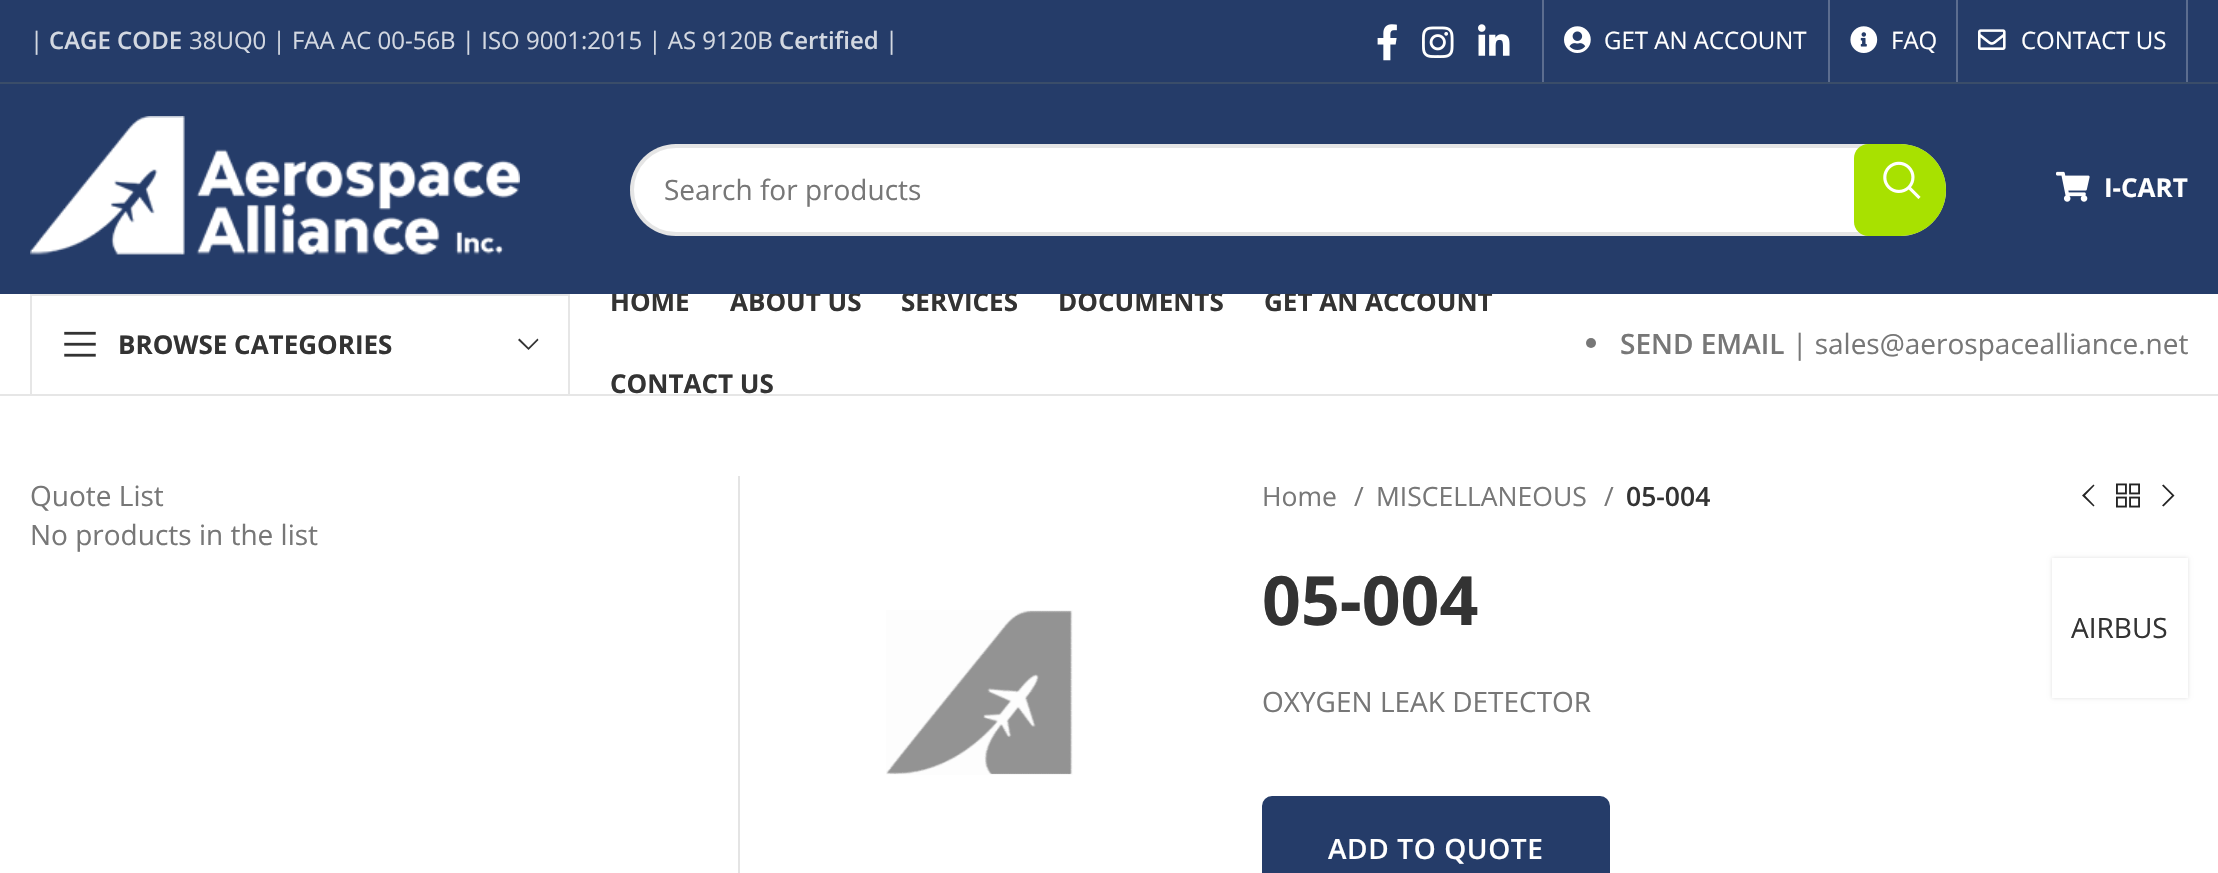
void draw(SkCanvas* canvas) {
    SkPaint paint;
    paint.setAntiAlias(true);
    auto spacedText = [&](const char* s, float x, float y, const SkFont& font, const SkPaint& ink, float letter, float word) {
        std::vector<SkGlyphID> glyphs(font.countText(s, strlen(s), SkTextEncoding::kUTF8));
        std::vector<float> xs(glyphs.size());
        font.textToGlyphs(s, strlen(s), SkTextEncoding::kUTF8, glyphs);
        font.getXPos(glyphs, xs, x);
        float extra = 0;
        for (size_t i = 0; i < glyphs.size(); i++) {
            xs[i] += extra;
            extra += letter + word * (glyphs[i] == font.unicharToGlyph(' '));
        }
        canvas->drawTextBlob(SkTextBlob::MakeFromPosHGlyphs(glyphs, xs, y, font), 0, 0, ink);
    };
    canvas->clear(0xFFFFFFFF);
    paint.setColor(0xFF253C69);
    canvas->drawRect(SkRect::MakeXYWH(0, 0, 2218, 82), paint);
    paint.setColor(0xFF3A4D69);
    canvas->drawRect(SkRect::MakeXYWH(0, 82, 2218, 2), paint);
    SkFont font1(fontMgr->matchFamilyStyle("Open Sans", SkFontStyle::Normal()), 24);
    font1.setSubpixel(true);
    paint.setColor(0xFFD3D8E1);
    canvas->drawString("|", 30, 49, font1, paint);
    SkFont font2(fontMgr->matchFamilyStyle("Open Sans", SkFontStyle(600, SkFontStyle::kNormal_Width, SkFontStyle::kUpright_Slant)), 24);
    font2.setSubpixel(true);
    canvas->drawString("CAGE CODE", 49, 49, font2, paint);
    canvas->drawString("38UQ0 | FAA AC 00-56B | ISO 9001:2015 | AS 9120B", 189, 49, font1, paint);
    canvas->drawString("Certified", 779, 49, font2, paint);
    canvas->drawString("|", 885, 49, font1, paint);
    canvas->drawImageRect(SkImages::DeferredFromEncodedData(SkData::MakeFromFileName("img1.png")), SkRect::MakeXYWH(1377, 24, 20, 37), SkSamplingOptions());
    canvas->drawImageRect(SkImages::DeferredFromEncodedData(SkData::MakeFromFileName("img2.png")), SkRect::MakeXYWH(1422, 26, 32, 32), SkSamplingOptions());
    canvas->drawImageRect(SkImages::DeferredFromEncodedData(SkData::MakeFromFileName("img3.png")), SkRect::MakeXYWH(1478, 24, 32, 32), SkSamplingOptions());
    paint.setColor(0xFF5C6D8F);
    canvas->drawRect(SkRect::MakeXYWH(1542, 0, 2, 82), paint);
    canvas->drawImageRect(SkImages::DeferredFromEncodedData(SkData::MakeFromFileName("img4.png")), SkRect::MakeXYWH(1564, 26, 27, 27), SkSamplingOptions());
    paint.setColor(0xFFFFFFFF);
    canvas->drawString("GET AN ACCOUNT", 1604, 49, font1, paint);
    paint.setColor(0xFF5C6D8F);
    canvas->drawRect(SkRect::MakeXYWH(1828, 0, 2, 82), paint);
    canvas->drawImageRect(SkImages::DeferredFromEncodedData(SkData::MakeFromFileName("img5.png")), SkRect::MakeXYWH(1850, 26, 28, 27), SkSamplingOptions());
    paint.setColor(0xFFFFFFFF);
    canvas->drawString("FAQ", 1891, 49, font1, paint);
    paint.setColor(0xFF5C6D8F);
    canvas->drawRect(SkRect::MakeXYWH(1956, 0, 2, 82), paint);
    canvas->drawImageRect(SkImages::DeferredFromEncodedData(SkData::MakeFromFileName("img6.png")), SkRect::MakeXYWH(1978, 29, 28, 21), SkSamplingOptions());
    paint.setColor(0xFFFFFFFF);
    canvas->drawString("CONTACT US", 2021, 49, font1, paint);
    paint.setColor(0xFF5C6D8F);
    canvas->drawRect(SkRect::MakeXYWH(2186, 0, 2, 82), paint);
    SkFont font3(fontMgr->matchFamilyStyle("Open Sans", SkFontStyle::Bold()), 26);
    font3.setSubpixel(true);
    paint.setColor(0xFF333333);
    canvas->drawString("HOME", 610, 311, font3, paint);
    canvas->drawString("ABOUT US", 730, 311, font3, paint);
    canvas->drawString("SERVICES", 901, 311, font3, paint);
    canvas->drawString("DOCUMENTS", 1058, 311, font3, paint);
    canvas->drawString("GET AN ACCOUNT", 1264, 311, font3, paint);
    paint.setColor(0xFF253C69);
    canvas->drawRect(SkRect::MakeXYWH(0, 84, 2218, 210), paint);
    canvas->drawImageRect(SkImages::DeferredFromEncodedData(SkData::MakeFromFileName("img7.png")), SkRect::MakeXYWH(30, 116, 490, 139), SkSamplingOptions());
    paint.setColor(0xFFFFFFFF);
    canvas->drawRoundRect(SkRect::MakeXYWH(630, 144, 1316, 92), 46, 46, paint);
    paint.setStyle(SkPaint::kStroke_Style);
    paint.setStrokeWidth(4);
    paint.setColor(0x1A000000);
    canvas->drawRoundRect(SkRect::MakeXYWH(632, 146, 1312, 88), 44, 44, paint);
    SkFont font4(fontMgr->matchFamilyStyle("Open Sans", SkFontStyle::Normal()), 28);
    font4.setSubpixel(true);
    paint.setStyle(SkPaint::kFill_Style);
    paint.setColor(0xFF777777);
    canvas->drawString("Search for products", 664, 200, font4, paint);
    paint.setColor(0xFFA8E100);
    canvas->drawPath(SkPathBuilder().moveTo(1868, 144).lineTo(1900, 144).cubicTo(1925.5f, 144, 1946, 164.5f, 1946, 190).cubicTo(1946, 215.5f, 1925.5f, 236, 1900, 236).lineTo(1868, 236).cubicTo(1860.5f, 236, 1854, 229.5f, 1854, 222).lineTo(1854, 158).cubicTo(1854, 150.5f, 1860.5f, 144, 1868, 144).close().detach(), paint);
    canvas->drawImageRect(SkImages::DeferredFromEncodedData(SkData::MakeFromFileName("img8.png")), SkRect::MakeXYWH(1883, 161, 38, 38), SkSamplingOptions());
    canvas->drawImageRect(SkImages::DeferredFromEncodedData(SkData::MakeFromFileName("img9.png")), SkRect::MakeXYWH(2056, 171, 34, 31), SkSamplingOptions());
    paint.setColor(0xFFFFFFFF);
    canvas->drawString("I-CART", 2104, 197, font3, paint);
    paint.setColor(0xFFE6E6E6);
    canvas->drawRect(SkRect::MakeXYWH(0, 394, 2218, 2), paint);
    paint.setStyle(SkPaint::kStroke_Style);
    paint.setStrokeWidth(2);
    canvas->drawRect(SkRect::MakeXYWH(31, 295, 538, 100), paint);
    canvas->drawImageRect(SkImages::DeferredFromEncodedData(SkData::MakeFromFileName("img10.png")), SkRect::MakeXYWH(64, 331, 32, 26), SkSamplingOptions());
    paint.setStyle(SkPaint::kFill_Style);
    paint.setColor(0xFF333333);
    canvas->drawString("BROWSE CATEGORIES", 118, 354, font3, paint);
    canvas->drawPath(SkPathBuilder().moveTo(537.5f, 338.5f).lineTo(528.5f, 347.5f).lineTo(519.5f, 338.5f).lineTo(518, 340).lineTo(528.5f, 350).lineTo(538.5f, 340).close().detach(), paint);
    canvas->drawString("CONTACT US", 610, 393, font3, paint);
    paint.setColor(0xFF777777);
    canvas->drawCircle(1591, 343, 5, paint);
    SkFont font5(fontMgr->matchFamilyStyle("Open Sans", SkFontStyle(600, SkFontStyle::kNormal_Width, SkFontStyle::kUpright_Slant)), 28);
    font5.setSubpixel(true);
    canvas->drawString("SEND EMAIL", 1620, 354, font5, paint);
    canvas->drawString("| sales@aerospacealliance.net", 1792, 354, font4, paint);
    paint.setColor(0xFFE4E4E4);
    canvas->drawRect(SkRect::MakeXYWH(738, 476, 2, 397), paint);
    paint.setColor(0xFF777777);
    canvas->drawString("Quote List", 30, 506, font4, paint);
    canvas->drawString("No products in the list", 30, 545, font4, paint);
    canvas->drawImageRect(SkImages::DeferredFromEncodedData(SkData::MakeFromFileName("img11.png")), SkRect::MakeXYWH(886, 610, 187, 165), SkSamplingOptions());
    SkFont font6(fontMgr->matchFamilyStyle("Open Sans", SkFontStyle::Normal()), 26.5f);
    font6.setSubpixel(true);
    canvas->drawString("Home", 1262, 506, font6, paint);
    canvas->drawString("/", 1354, 506, font6, paint);
    canvas->drawString("MISCELLANEOUS", 1376, 506, font6, paint);
    canvas->drawString("/", 1604, 506, font6, paint);
    SkFont font7(fontMgr->matchFamilyStyle("Open Sans", SkFontStyle(600, SkFontStyle::kNormal_Width, SkFontStyle::kUpright_Slant)), 26.5f);
    font7.setSubpixel(true);
    paint.setColor(0xFF333333);
    canvas->drawString("05-004", 1626, 506, font7, paint);
    paint.setColor(0xFF242424);
    canvas->drawPath(SkPathBuilder().moveTo(2094.5f, 485.5f).lineTo(2093.5f, 484.5f).lineTo(2082, 495.5f).lineTo(2093.5f, 506.5f).lineTo(2094.5f, 505.5f).lineTo(2085, 495.5f).close().detach(), paint);
    canvas->drawImageRect(SkImages::DeferredFromEncodedData(SkData::MakeFromFileName("img12.png")), SkRect::MakeXYWH(2116, 483, 24, 25), SkSamplingOptions());
    canvas->drawPath(SkPathBuilder().moveTo(2162, 485.5f).lineTo(2172, 495.5f).lineTo(2162, 505.5f).lineTo(2163.5f, 506.5f).lineTo(2174.5f, 495.5f).lineTo(2163.5f, 484.5f).close().detach(), paint);
    SkFont font8(fontMgr->matchFamilyStyle("Open Sans", SkFontStyle::Bold()), 68);
    font8.setSubpixel(true);
    paint.setColor(0xFF333333);
    canvas->drawString("05-004", 1262, 625, font8, paint);
    canvas->save();
    canvas->clipPath(SkPathBuilder(SkPathFillType::kEvenOdd).moveTo(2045, 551).lineTo(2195, 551).lineTo(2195, 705).lineTo(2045, 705).close().moveTo(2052, 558).lineTo(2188, 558).lineTo(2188, 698).lineTo(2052, 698).close().detach(), true);
    paint.setColor(0x1F000000);
    paint.setMaskFilter(SkMaskFilter::MakeBlur(kNormal_SkBlurStyle, 2));
    canvas->drawRect(SkRect::MakeXYWH(2052, 558, 136, 140), paint);
    paint.setMaskFilter(nullptr);
    canvas->restore();
    paint.setColor(0xFF333333);
    canvas->drawString("AIRBUS", 2071, 638, font4, paint);
    paint.setColor(0xFF777777);
    canvas->drawString("OXYGEN LEAK DETECTOR", 1262, 712, font4, paint);
    paint.setColor(0xFF253C69);
    canvas->drawRoundRect(SkRect::MakeXYWH(1263, 797, 346, 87), 9, 9, paint);
    paint.setStyle(SkPaint::kStroke_Style);
    canvas->drawRoundRect(SkRect::MakeXYWH(1263, 797, 346, 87), 9, 9, paint);
    paint.setStyle(SkPaint::kFill_Style);
    paint.setColor(0xFFFFFFFF);
    spacedText("ADD TO QUOTE", 1328, 859, font5, paint, 0.6f, 0);
}
